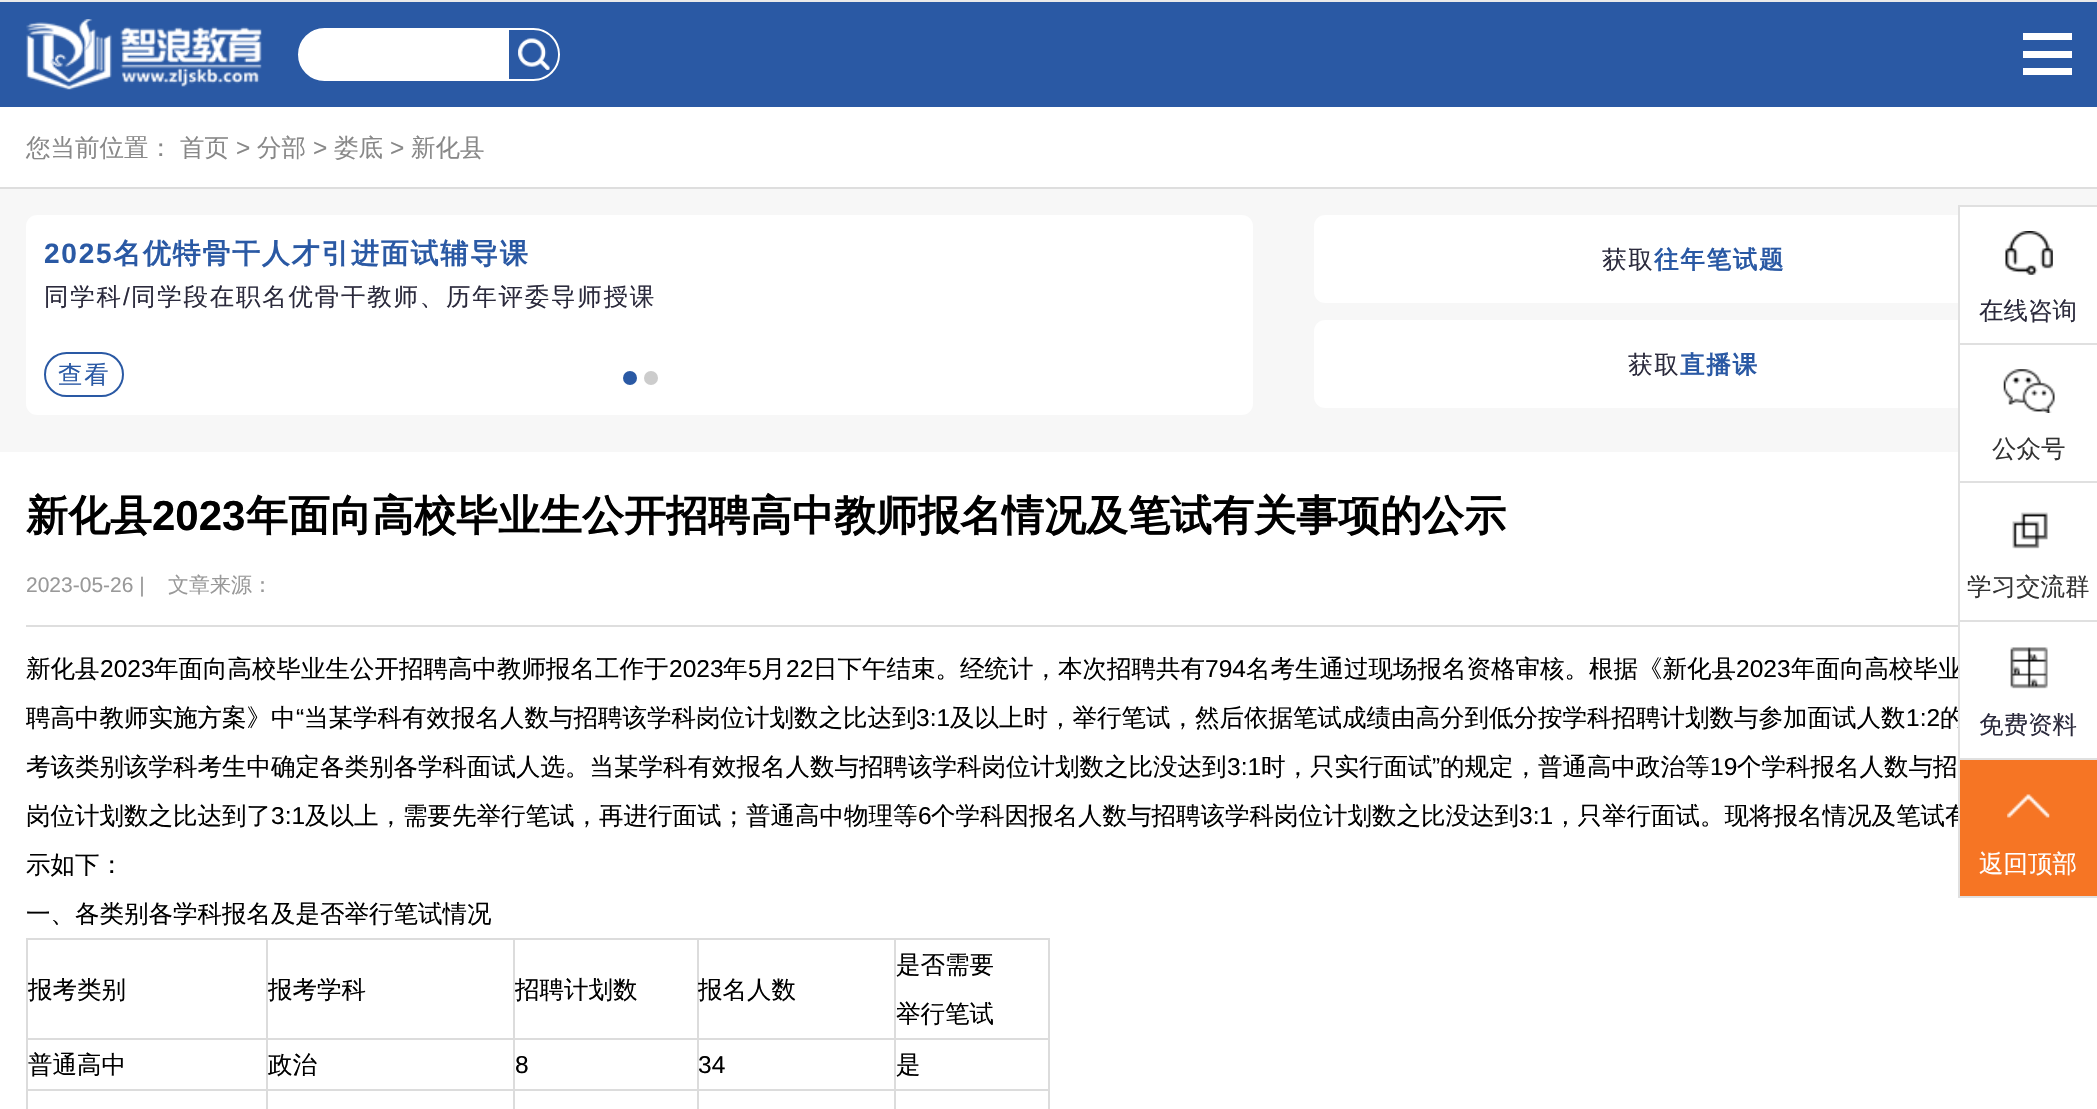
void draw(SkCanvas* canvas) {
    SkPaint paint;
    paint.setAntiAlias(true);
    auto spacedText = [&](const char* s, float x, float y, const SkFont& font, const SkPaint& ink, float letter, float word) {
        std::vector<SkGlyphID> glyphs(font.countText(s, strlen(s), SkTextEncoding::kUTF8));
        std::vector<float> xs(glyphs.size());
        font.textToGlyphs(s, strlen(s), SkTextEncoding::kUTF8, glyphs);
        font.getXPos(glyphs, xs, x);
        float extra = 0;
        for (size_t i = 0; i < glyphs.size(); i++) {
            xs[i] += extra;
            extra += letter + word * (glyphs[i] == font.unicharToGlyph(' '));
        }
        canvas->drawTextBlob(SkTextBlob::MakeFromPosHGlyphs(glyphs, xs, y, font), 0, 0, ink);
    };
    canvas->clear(0xFFFFFFFF);
    paint.setColor(0xFF2A59A4);
    canvas->drawRect(SkRect::MakeXYWH(0, 2, 2097, 105), paint);
    paint.setColor(0xFFEAEAEA);
    canvas->drawRect(SkRect::MakeXYWH(0, 0, 2097, 2), paint);
    canvas->drawImageRect(SkImages::DeferredFromEncodedData(SkData::MakeFromFileName("img1.png")), SkRect::MakeXYWH(26, 19, 236, 71), SkSamplingOptions());
    paint.setColor(0xFFFFFFFF);
    canvas->drawRoundRect(SkRect::MakeXYWH(299, 29, 260, 51), 25.5f, 25.5f, paint);
    paint.setStyle(SkPaint::kStroke_Style);
    paint.setStrokeWidth(2);
    canvas->drawRoundRect(SkRect::MakeXYWH(299, 29, 260, 51), 25.5f, 25.5f, paint);
    paint.setStyle(SkPaint::kFill_Style);
    paint.setColor(0xFF2A59A4);
    canvas->drawPath(SkPathBuilder().moveTo(509, 30).lineTo(533.5f, 30).cubicTo(547, 30, 558, 41, 558, 54.5f).cubicTo(558, 68, 547, 79, 533.5f, 79).lineTo(509, 79).close().detach(), paint);
    canvas->drawImageRect(SkImages::DeferredFromEncodedData(SkData::MakeFromFileName("img2.png")), SkRect::MakeXYWH(518, 38, 32, 32), SkSamplingOptions());
    paint.setColor(0xFFFFFFFF);
    canvas->drawRect(SkRect::MakeXYWH(2023, 33, 49, 7), paint);
    canvas->drawRect(SkRect::MakeXYWH(2023, 51, 49, 7), paint);
    canvas->drawRect(SkRect::MakeXYWH(2023, 68, 49, 7), paint);
    paint.setColor(0xFFDEDEDE);
    canvas->drawRect(SkRect::MakeXYWH(0, 187, 2097, 2), paint);
    SkFont font1(fontMgr->matchFamilyStyle("WenQuanYi Zen Hei", SkFontStyle(500, SkFontStyle::kNormal_Width, SkFontStyle::kUpright_Slant)), 24.5f);
    font1.setSubpixel(true);
    paint.setColor(0xFF888888);
    canvas->drawString("您当前位置：", 26, 156, font1, paint);
    canvas->drawString("首页", 180, 156, font1, paint);
    SkFont font2(fontMgr->matchFamilyStyle("Liberation Sans", SkFontStyle::Normal()), 24.5f);
    font2.setSubpixel(true);
    canvas->drawString(">", 236, 156, font2, paint);
    canvas->drawString("分部", 257, 156, font1, paint);
    canvas->drawString(">", 313, 156, font2, paint);
    canvas->drawString("娄底", 334, 156, font1, paint);
    canvas->drawString(">", 390, 156, font2, paint);
    canvas->drawString("新化县", 411, 156, font1, paint);
    paint.setColor(0xFFF7F7F7);
    canvas->drawRect(SkRect::MakeXYWH(0, 189, 2097, 263), paint);
    paint.setColor(0xFFFFFFFF);
    canvas->drawRoundRect(SkRect::MakeXYWH(26, 215, 1227, 200), 11, 11, paint);
    SkFont font3(fontMgr->matchFamilyStyle("Liberation Sans", SkFontStyle::Bold()), 28);
    font3.setSubpixel(true);
    paint.setColor(0xFF2A59A4);
    spacedText("2025", 44, 263, font3, paint, 1.75f, 0);
    SkFont font4(fontMgr->matchFamilyStyle("WenQuanYi Zen Hei", SkFontStyle::Bold()), 28);
    font4.setSubpixel(true);
    spacedText("名优特骨干人才引进面试辅导课", 113, 263, font4, paint, 1.75f, 0);
    paint.setColor(0xFF2B2A3C);
    spacedText("同学科", 44, 305, font1, paint, 1.75f, 0);
    spacedText("/", 123, 305, font2, paint, 1.75f, 0);
    spacedText("同学段在职名优骨干教师、历年评委导师授课", 131, 305, font1, paint, 1.75f, 0);
    paint.setStyle(SkPaint::kStroke_Style);
    paint.setColor(0xFF2A59A4);
    canvas->drawRoundRect(SkRect::MakeXYWH(45, 353, 78, 43), 21.5f, 21.5f, paint);
    paint.setStyle(SkPaint::kFill_Style);
    spacedText("查看", 58, 383, font1, paint, 1.75f, 0);
    canvas->drawCircle(630, 378, 7, paint);
    paint.setColor(0xFFCCCCCC);
    canvas->drawCircle(651, 378, 7, paint);
    paint.setColor(0xFFFFFFFF);
    canvas->drawRoundRect(SkRect::MakeXYWH(1314, 215, 758, 88), 11, 11, paint);
    paint.setColor(0xFF2B2A3C);
    spacedText("获取", 1602, 268, font1, paint, 1.75f, 0);
    SkFont font5(fontMgr->matchFamilyStyle("WenQuanYi Zen Hei", SkFontStyle::Bold()), 24.5f);
    font5.setSubpixel(true);
    paint.setColor(0xFF2A59A4);
    spacedText("往年笔试题", 1654, 268, font5, paint, 1.75f, 0);
    paint.setColor(0xFFFFFFFF);
    canvas->drawRoundRect(SkRect::MakeXYWH(1314, 320, 758, 88), 11, 11, paint);
    paint.setColor(0xFF2B2A3C);
    spacedText("获取", 1628, 373, font1, paint, 1.75f, 0);
    paint.setColor(0xFF2A59A4);
    spacedText("直播课", 1680, 373, font5, paint, 1.75f, 0);
    paint.setColor(0xFFDEDEDE);
    canvas->drawRect(SkRect::MakeXYWH(26, 625, 1932, 2), paint);
    SkFont font6(fontMgr->matchFamilyStyle("WenQuanYi Zen Hei", SkFontStyle::Bold()), 42);
    font6.setSubpixel(true);
    paint.setColor(0xFF000000);
    canvas->drawString("新化县", 26, 530, font6, paint);
    SkFont font7(fontMgr->matchFamilyStyle("Liberation Sans", SkFontStyle::Bold()), 42);
    font7.setSubpixel(true);
    canvas->drawString("2023", 152, 530, font7, paint);
    canvas->drawString("年面向高校毕业生公开招聘高中教师报名情况及笔试有关事项的公示", 246, 530, font6, paint);
    SkFont font8(fontMgr->matchFamilyStyle("Liberation Sans", SkFontStyle::Normal()), 21);
    font8.setSubpixel(true);
    paint.setColor(0xFF999999);
    canvas->drawString("2023-05-26 |", 26, 592, font8, paint);
    SkFont font9(fontMgr->matchFamilyStyle("WenQuanYi Zen Hei", SkFontStyle(500, SkFontStyle::kNormal_Width, SkFontStyle::kUpright_Slant)), 21);
    font9.setSubpixel(true);
    canvas->drawString("文章来源：", 168, 592, font9, paint);
    paint.setColor(0xFF000000);
    canvas->drawString("新化县", 26, 677, font1, paint);
    canvas->drawString("2023", 100, 677, font2, paint);
    canvas->drawString("年面向高校毕业生公开招聘高中教师报名工作于", 154, 677, font1, paint);
    canvas->drawString("2023", 669, 677, font2, paint);
    canvas->drawString("年", 723, 677, font1, paint);
    canvas->drawString("5", 748, 677, font2, paint);
    canvas->drawString("月", 761, 677, font1, paint);
    canvas->drawString("22", 786, 677, font2, paint);
    canvas->drawString("日下午结束。经统计，本次招聘共有", 813, 677, font1, paint);
    canvas->drawString("794", 1205, 677, font2, paint);
    canvas->drawString("名考生通过现场报名资格审核。根据《新化县", 1246, 677, font1, paint);
    canvas->drawString("2023", 1736, 677, font2, paint);
    canvas->drawString("年面向高校毕业", 1791, 677, font1, paint);
    canvas->drawString("聘高中教师实施方案》中", 26, 726, font1, paint);
    canvas->drawString("“", 296, 726, font2, paint);
    canvas->drawString("当某学科有效报名人数与招聘该学科岗位计划数之比达到", 304, 726, font1, paint);
    canvas->drawString("3:1", 916, 726, font2, paint);
    canvas->drawString("及以上时，举行笔试，然后依据笔试成绩由高分到低分按学科招聘计划数与参加面试人数", 950, 726, font1, paint);
    canvas->drawString("1:2", 1906, 726, font2, paint);
    canvas->drawString("的", 1940, 726, font1, paint);
    canvas->drawString("考该类别该学科考生中确定各类别各学科面试人选。当某学科有效报名人数与招聘该学科岗位计划数之比没达到", 26, 775, font1, paint);
    canvas->drawString("3:1", 1227, 775, font2, paint);
    canvas->drawString("时，只实行面试", 1261, 775, font1, paint);
    canvas->drawString("”", 1432, 775, font2, paint);
    canvas->drawString("的规定，普通高中政治等", 1440, 775, font1, paint);
    canvas->drawString("19", 1710, 775, font2, paint);
    canvas->drawString("个学科报名人数与招", 1737, 775, font1, paint);
    canvas->drawString("岗位计划数之比达到了", 26, 824, font1, paint);
    canvas->drawString("3:1", 271, 824, font2, paint);
    canvas->drawString("及以上，需要先举行笔试，再进行面试；普通高中物理等", 305, 824, font1, paint);
    canvas->drawString("6", 918, 824, font2, paint);
    canvas->drawString("个学科因报名人数与招聘该学科岗位计划数之比没达到", 931, 824, font1, paint);
    canvas->drawString("3:1", 1519, 824, font2, paint);
    canvas->drawString("，只举行面试。现将报名情况及笔试有", 1553, 824, font1, paint);
    canvas->drawString("示如下：", 26, 873, font1, paint);
    canvas->drawString("一、各类别各学科报名及是否举行笔试情况", 26, 922, font1, paint);
    paint.setColor(0xFFDCDCDC);
    canvas->drawRect(SkRect::MakeXYWH(894, 938, 156, 2), paint);
    canvas->drawRect(SkRect::MakeXYWH(894, 1038, 156, 2), paint);
    canvas->drawRect(SkRect::MakeXYWH(894, 1089, 156, 2), paint);
    canvas->drawRect(SkRect::MakeXYWH(894, 1089, 2, 20), paint);
    canvas->drawRect(SkRect::MakeXYWH(697, 1089, 199, 2), paint);
    canvas->drawRect(SkRect::MakeXYWH(894, 1038, 2, 52), paint);
    canvas->drawRect(SkRect::MakeXYWH(697, 1038, 199, 2), paint);
    canvas->drawRect(SkRect::MakeXYWH(894, 938, 2, 102), paint);
    canvas->drawRect(SkRect::MakeXYWH(697, 938, 199, 2), paint);
    canvas->drawRect(SkRect::MakeXYWH(697, 1089, 2, 20), paint);
    canvas->drawRect(SkRect::MakeXYWH(513, 1089, 185, 2), paint);
    canvas->drawRect(SkRect::MakeXYWH(697, 1038, 2, 52), paint);
    canvas->drawRect(SkRect::MakeXYWH(513, 1038, 185, 2), paint);
    canvas->drawRect(SkRect::MakeXYWH(697, 938, 2, 102), paint);
    canvas->drawRect(SkRect::MakeXYWH(513, 938, 185, 2), paint);
    canvas->drawRect(SkRect::MakeXYWH(513, 1089, 2, 20), paint);
    canvas->drawRect(SkRect::MakeXYWH(266, 1089, 249, 2), paint);
    canvas->drawRect(SkRect::MakeXYWH(513, 1038, 2, 52), paint);
    canvas->drawRect(SkRect::MakeXYWH(266, 1038, 249, 2), paint);
    canvas->drawRect(SkRect::MakeXYWH(513, 938, 2, 102), paint);
    canvas->drawRect(SkRect::MakeXYWH(266, 938, 249, 2), paint);
    canvas->drawRect(SkRect::MakeXYWH(266, 1089, 2, 20), paint);
    canvas->drawRect(SkRect::MakeXYWH(26, 1089, 242, 2), paint);
    canvas->drawRect(SkRect::MakeXYWH(266, 1038, 2, 52), paint);
    canvas->drawRect(SkRect::MakeXYWH(26, 1038, 242, 2), paint);
    canvas->drawRect(SkRect::MakeXYWH(266, 938, 2, 102), paint);
    canvas->drawRect(SkRect::MakeXYWH(26, 938, 242, 2), paint);
    canvas->drawRect(SkRect::MakeXYWH(26, 1089, 2, 20), paint);
    canvas->drawRect(SkRect::MakeXYWH(26, 1038, 2, 52), paint);
    canvas->drawRect(SkRect::MakeXYWH(26, 938, 2, 102), paint);
    paint.setColor(0xFF000000);
    canvas->drawString("报考类别", 28, 998, font1, paint);
    canvas->drawString("报考学科", 268, 998, font1, paint);
    canvas->drawString("招聘计划数", 515, 998, font1, paint);
    canvas->drawString("报名人数", 698, 998, font1, paint);
    paint.setColor(0xFFDCDCDC);
    canvas->drawRect(SkRect::MakeXYWH(1048, 1089, 2, 20), paint);
    canvas->drawRect(SkRect::MakeXYWH(1048, 1038, 2, 52), paint);
    canvas->drawRect(SkRect::MakeXYWH(1048, 938, 2, 102), paint);
    paint.setColor(0xFF000000);
    canvas->drawString("是否需要", 896, 973, font1, paint);
    canvas->drawString("举行笔试", 896, 1022, font1, paint);
    canvas->drawString("普通高中", 28, 1073, font1, paint);
    canvas->drawString("政治", 268, 1073, font1, paint);
    canvas->drawString("8", 515, 1073, font2, paint);
    canvas->drawString("34", 698, 1073, font2, paint);
    canvas->drawString("是", 896, 1073, font1, paint);
    paint.setColor(0xFFFFFFFF);
    canvas->drawRect(SkRect::MakeXYWH(1960, 207, 137, 522), paint);
    paint.setColor(0xFFE0E0E0);
    canvas->drawRect(SkRect::MakeXYWH(1958, 205, 139, 2), paint);
    canvas->drawRect(SkRect::MakeXYWH(1958, 205, 2, 693), paint);
    canvas->drawRect(SkRect::MakeXYWH(1960, 343, 137, 2), paint);
    canvas->drawImageRect(SkImages::DeferredFromEncodedData(SkData::MakeFromFileName("img3.png")), SkRect::MakeXYWH(2005, 231, 48, 44), SkSamplingOptions());
    paint.setColor(0xFF2B2A3C);
    canvas->drawString("在线咨询", 1979, 319, font1, paint);
    paint.setColor(0xFFE0E0E0);
    canvas->drawRect(SkRect::MakeXYWH(1960, 481, 137, 2), paint);
    canvas->drawImageRect(SkImages::DeferredFromEncodedData(SkData::MakeFromFileName("img4.png")), SkRect::MakeXYWH(2003, 369, 52, 44), SkSamplingOptions());
    paint.setColor(0xFF333333);
    canvas->drawString("公众号", 1992, 457, font1, paint);
    paint.setColor(0xFFE0E0E0);
    canvas->drawRect(SkRect::MakeXYWH(1960, 620, 137, 2), paint);
    canvas->drawImageRect(SkImages::DeferredFromEncodedData(SkData::MakeFromFileName("img5.png")), SkRect::MakeXYWH(2012, 512, 36, 37), SkSamplingOptions());
    paint.setColor(0xFF333333);
    canvas->drawString("学习交流群", 1967, 595, font1, paint);
    paint.setColor(0xFFE0E0E0);
    canvas->drawRect(SkRect::MakeXYWH(1960, 758, 137, 2), paint);
    canvas->drawImageRect(SkImages::DeferredFromEncodedData(SkData::MakeFromFileName("img6.png")), SkRect::MakeXYWH(2010, 647, 38, 42), SkSamplingOptions());
    paint.setColor(0xFF2B2A3C);
    canvas->drawString("免费资料", 1979, 733, font1, paint);
    paint.setColor(0xFFF67524);
    canvas->drawRect(SkRect::MakeXYWH(1960, 760, 137, 136), paint);
    paint.setColor(0xFFE0E0E0);
    canvas->drawRect(SkRect::MakeXYWH(1960, 896, 137, 2), paint);
    canvas->drawImageRect(SkImages::DeferredFromEncodedData(SkData::MakeFromFileName("img7.png")), SkRect::MakeXYWH(2007, 794, 43, 24), SkSamplingOptions());
    paint.setColor(0xFFFFFFFF);
    canvas->drawString("返回顶部", 1979, 872, font1, paint);
}
